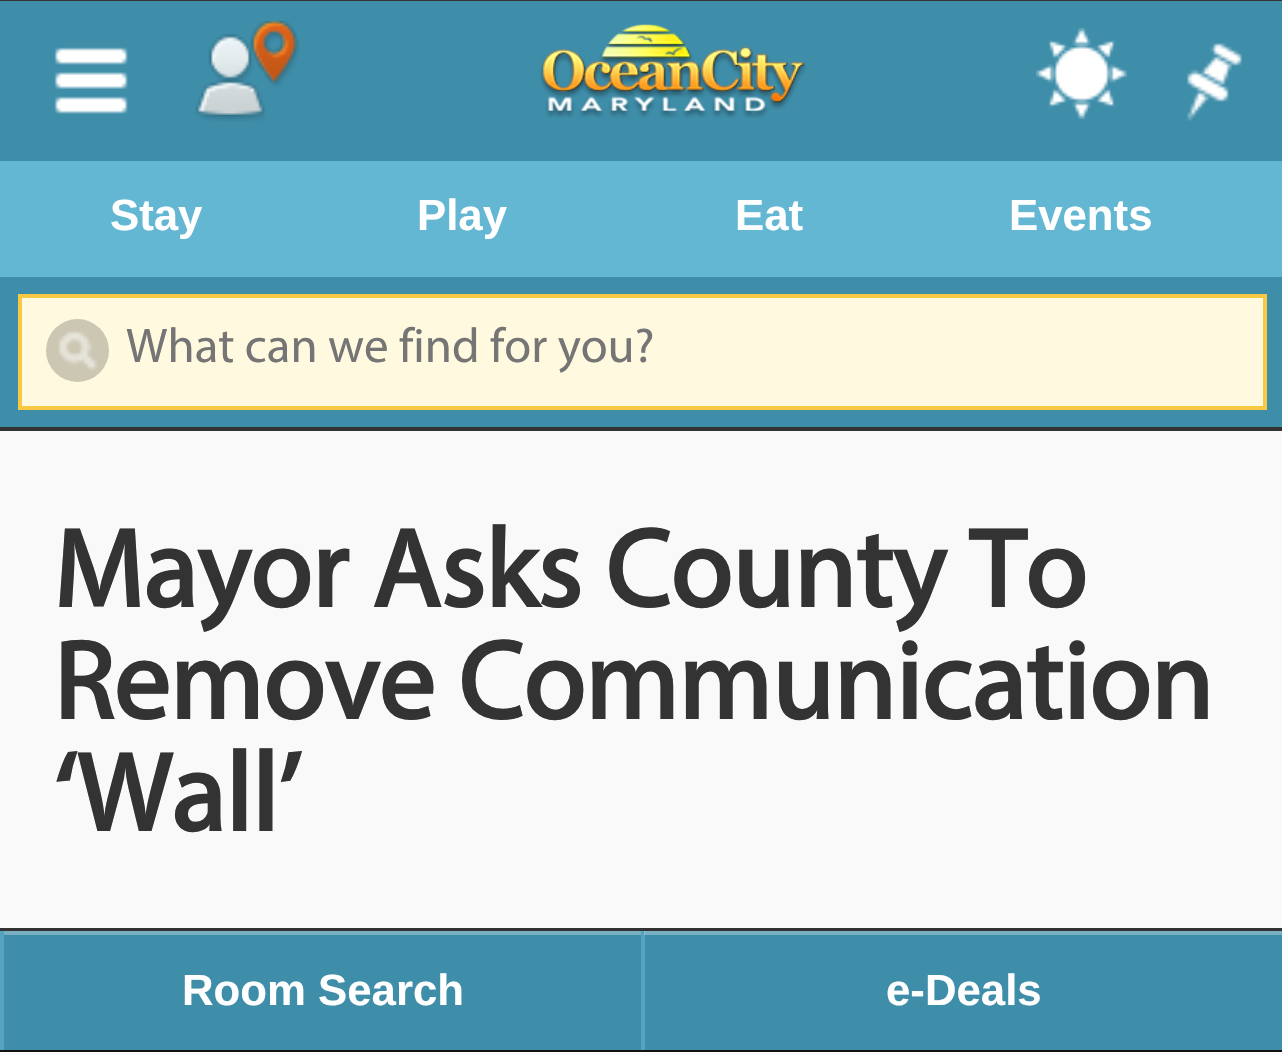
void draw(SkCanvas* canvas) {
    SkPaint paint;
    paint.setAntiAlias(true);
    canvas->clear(0xFFF9F9F9);
    paint.setColor(0xFF3E8DA9);
    canvas->drawRect(SkRect::MakeXYWH(0, 1, 1282, 426), paint);
    paint.setColor(0xFF333333);
    canvas->drawRect(SkRect::MakeXYWH(0, 0, 1282, 1), paint);
    canvas->drawRect(SkRect::MakeXYWH(0, 427, 1282, 4), paint);
    canvas->drawImageRect(SkImages::DeferredFromEncodedData(SkData::MakeFromFileName("img1.png")), SkRect::MakeXYWH(54, 47, 74, 67), SkSamplingOptions());
    canvas->drawImageRect(SkImages::DeferredFromEncodedData(SkData::MakeFromFileName("img2.png")), SkRect::MakeXYWH(196, 21, 103, 101), SkSamplingOptions());
    canvas->drawImageRect(SkImages::DeferredFromEncodedData(SkData::MakeFromFileName("img3.png")), SkRect::MakeXYWH(1036, 28, 91, 91), SkSamplingOptions());
    canvas->drawImageRect(SkImages::DeferredFromEncodedData(SkData::MakeFromFileName("img4.png")), SkRect::MakeXYWH(1187, 43, 55, 78), SkSamplingOptions());
    canvas->drawImageRect(SkImages::DeferredFromEncodedData(SkData::MakeFromFileName("img5.png")), SkRect::MakeXYWH(540, 24, 266, 94), SkSamplingOptions());
    paint.setColor(0xFF63B7D3);
    canvas->drawRect(SkRect::MakeXYWH(0, 161, 1282, 116), paint);
    SkFont font1(fontMgr->matchFamilyStyle("Liberation Sans", SkFontStyle::Bold()), 43.75f);
    font1.setSubpixel(true);
    paint.setColor(0xFFFFFFFF);
    canvas->drawString("Stay", 110, 230, font1, paint);
    canvas->drawString("Play", 417, 230, font1, paint);
    canvas->drawString("Eat", 735, 230, font1, paint);
    canvas->drawString("Events", 1009, 230, font1, paint);
    paint.setColor(0xFFFFF9DF);
    canvas->drawRect(SkRect::MakeXYWH(20, 296, 1245, 112), paint);
    paint.setStyle(SkPaint::kStroke_Style);
    paint.setStrokeWidth(4);
    paint.setColor(0xFFF7C942);
    canvas->drawRect(SkRect::MakeXYWH(20, 296, 1245, 112), paint);
    paint.setStyle(SkPaint::kFill_Style);
    paint.setColor(0xFFCCC7B3);
    canvas->drawCircle(77.5f, 350.5f, 31.5f, paint);
    canvas->drawImageRect(SkImages::DeferredFromEncodedData(SkData::MakeFromFileName("img6.png")), SkRect::MakeXYWH(58, 330, 40, 41), SkSamplingOptions());
    SkFont font2(fontMgr->matchFamilyStyle("Myriad", SkFontStyle::Normal()), 49);
    font2.setSubpixel(true);
    paint.setColor(0xFF757575);
    canvas->drawString("What can we find for you?", 126, 362, font2, paint);
    SkFont font3(fontMgr->matchFamilyStyle("Myriad", SkFontStyle::Bold()), 112);
    font3.setSubpixel(true);
    paint.setColor(0xFF333333);
    canvas->drawString("Mayor Asks County To", 53, 607, font3, paint);
    canvas->drawString("Remove Communication", 53, 719, font3, paint);
    canvas->drawString("‘Wall’", 53, 831, font3, paint);
    {
        const SkColor colors[] = {0xFF3C3C3C, 0xFF111111};
        const float stops[] = {0, 1};
        const SkPoint ends[] = {{642, 931}, {642, 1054}};
        paint.setShader(SkGradientShader::MakeLinear(ends, colors, stops, 2, SkTileMode::kClamp));
        paint.setAlpha(255);
    }
    canvas->drawRect(SkRect::MakeXYWH(0, 1050, 1282, 2), paint);
    paint.setShader(nullptr);
    paint.setColor(0xFF333333);
    canvas->drawRect(SkRect::MakeXYWH(0, 928, 1282, 3), paint);
    paint.setColor(0xFF3E8DA9);
    canvas->drawRect(SkRect::MakeXYWH(4, 935, 637, 115), paint);
    paint.setColor(0xFF55A3BF);
    canvas->drawRect(SkRect::MakeXYWH(0, 931, 4, 119), paint);
    paint.setColor(0xFF78AFC3);
    canvas->drawRect(SkRect::MakeXYWH(4, 931, 1278, 4), paint);
    paint.setColor(0xFFFFFFFF);
    canvas->drawString("Room Search", 182, 1005, font1, paint);
    paint.setColor(0xFF3E8DA9);
    canvas->drawRect(SkRect::MakeXYWH(645, 935, 637, 115), paint);
    paint.setColor(0xFF55A3BF);
    canvas->drawRect(SkRect::MakeXYWH(641, 931, 4, 119), paint);
    paint.setColor(0xFF88BFD2);
    canvas->drawRect(SkRect::MakeXYWH(644, 931, 1, 4), paint);
    paint.setColor(0xFFFFFFFF);
    canvas->drawString("e-Deals", 886, 1005, font1, paint);
}
